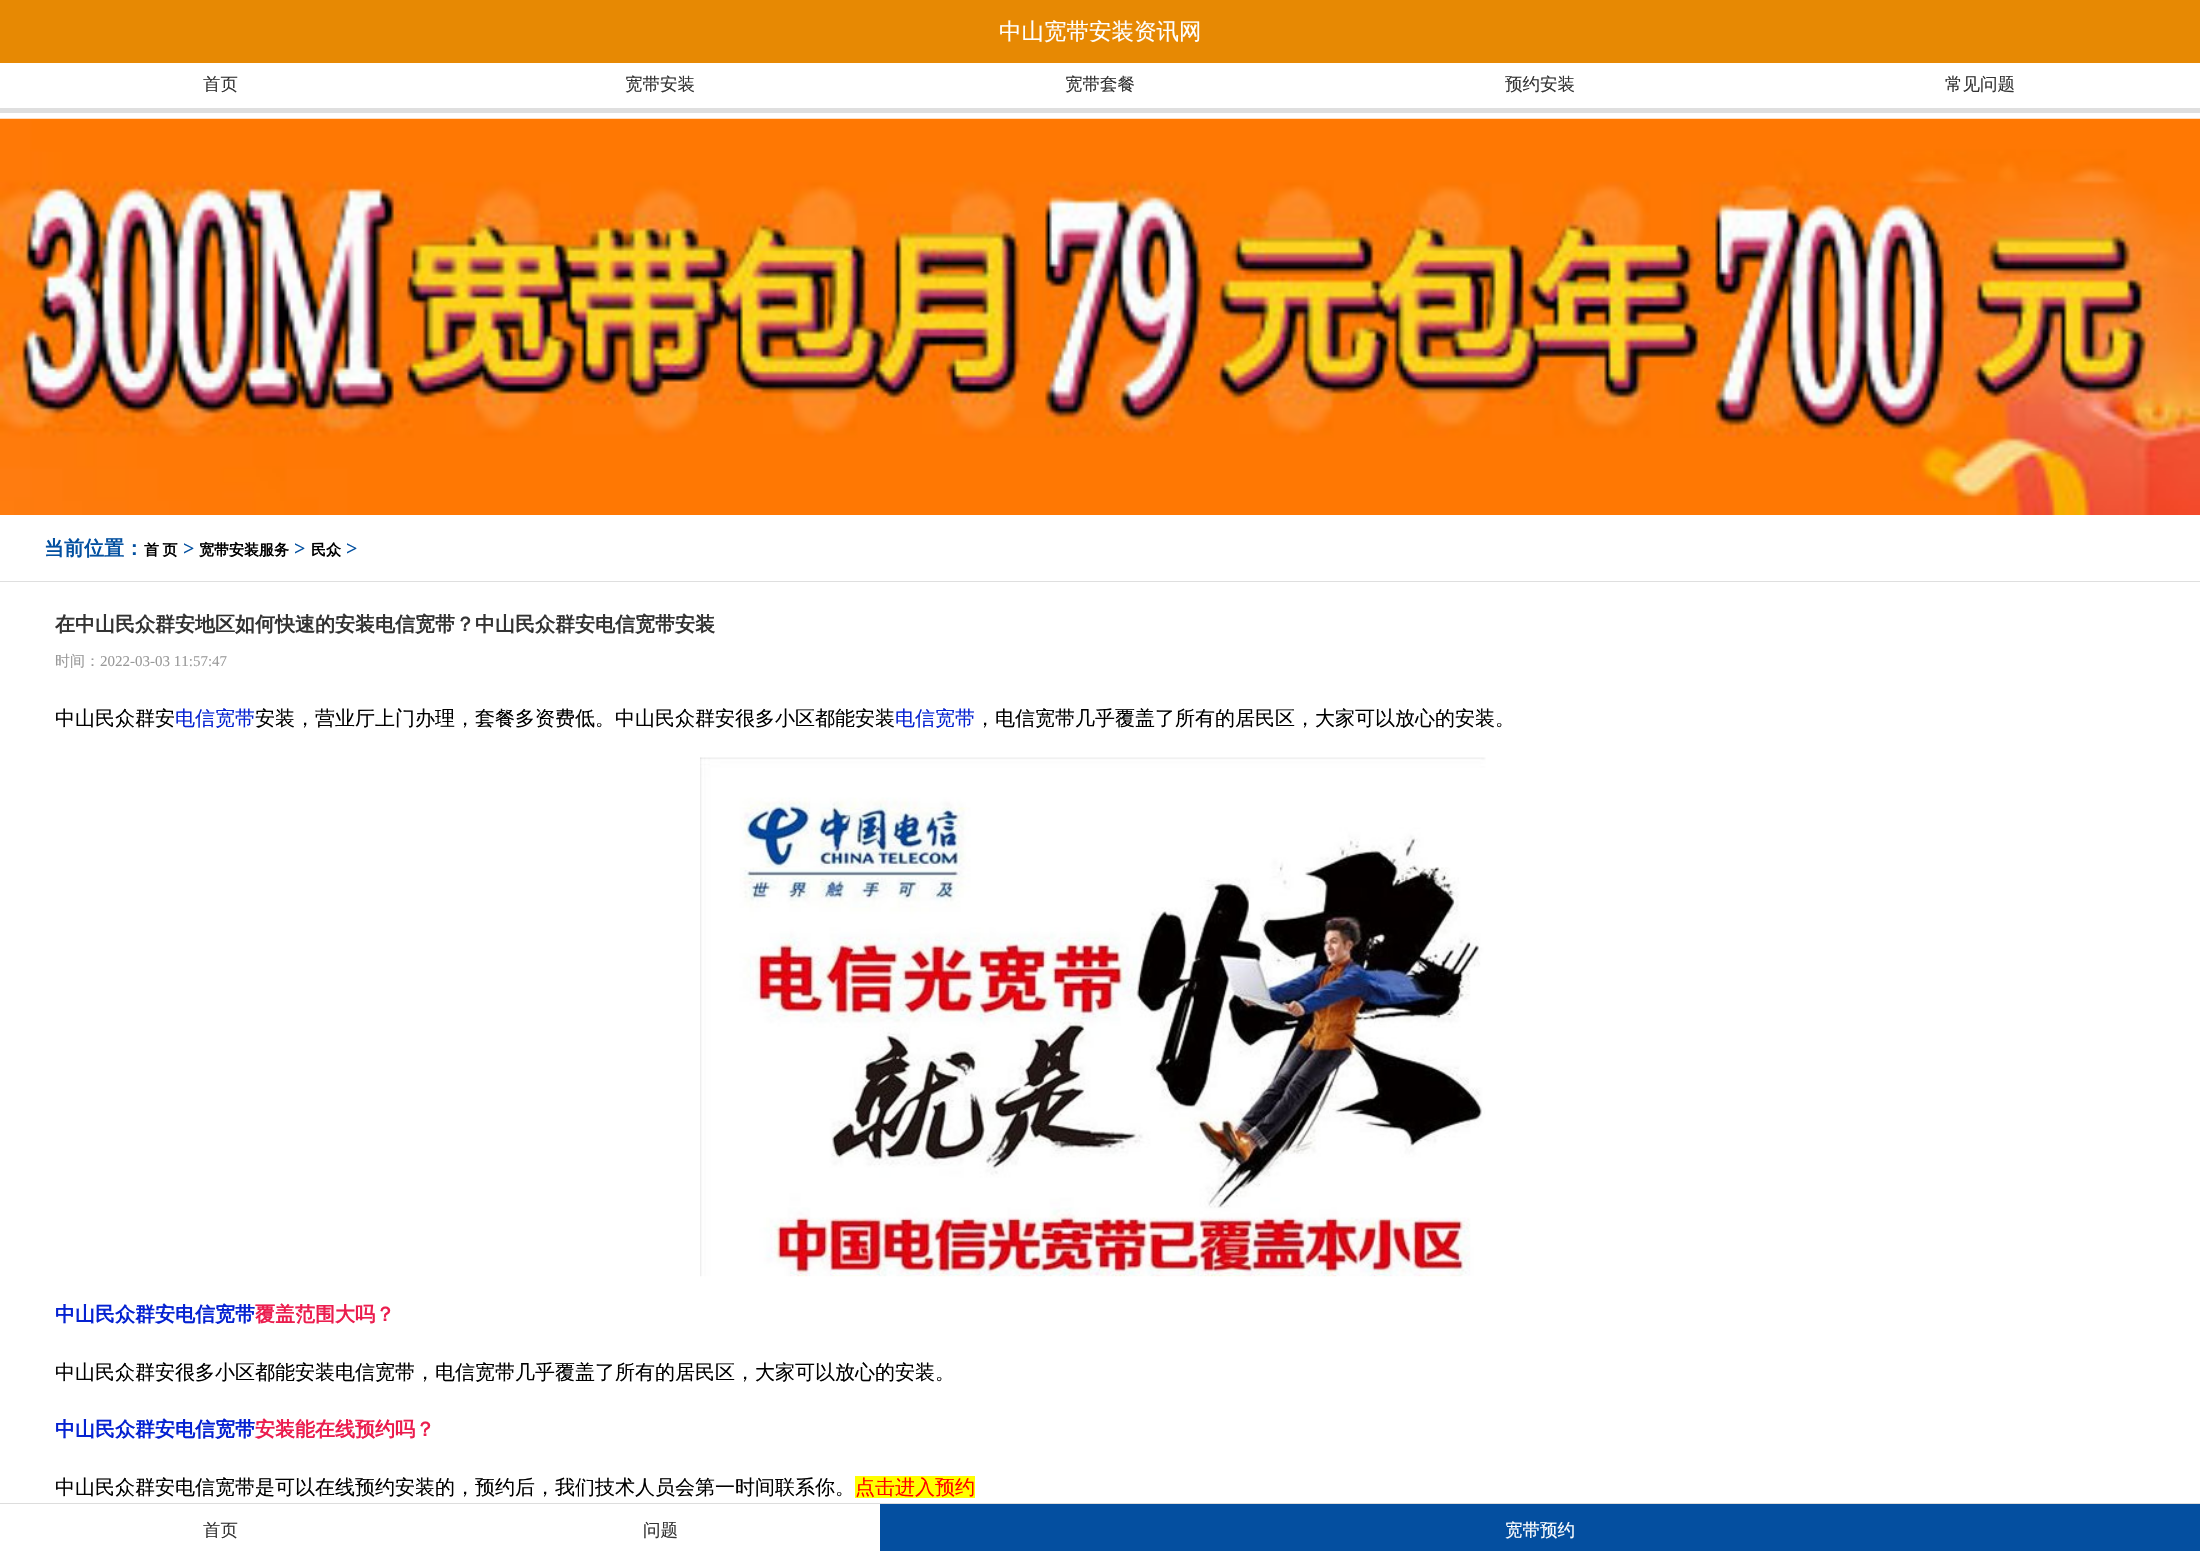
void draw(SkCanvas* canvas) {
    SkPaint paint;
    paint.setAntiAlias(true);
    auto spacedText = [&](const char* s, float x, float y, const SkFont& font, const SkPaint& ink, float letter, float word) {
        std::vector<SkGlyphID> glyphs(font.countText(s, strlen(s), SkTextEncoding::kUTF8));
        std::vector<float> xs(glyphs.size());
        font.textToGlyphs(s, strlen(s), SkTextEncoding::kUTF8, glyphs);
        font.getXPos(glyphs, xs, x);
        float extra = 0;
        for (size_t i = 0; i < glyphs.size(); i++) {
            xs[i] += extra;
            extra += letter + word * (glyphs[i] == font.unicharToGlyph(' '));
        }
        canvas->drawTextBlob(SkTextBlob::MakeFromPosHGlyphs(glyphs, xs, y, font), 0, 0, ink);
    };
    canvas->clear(0xFFFFFFFF);
    paint.setColor(0xFFE78903);
    canvas->drawRect(SkRect::MakeXYWH(0, 0, 2200, 63), paint);
    SkFont font1(fontMgr->matchFamilyStyle("WenQuanYi Zen Hei", SkFontStyle(500, SkFontStyle::kNormal_Width, SkFontStyle::kUpright_Slant)), 22.5f);
    font1.setSubpixel(true);
    paint.setColor(0xFFFFFFFF);
    canvas->drawString("中山宽带安装资讯网", 999, 39, font1, paint);
    paint.setColor(0xFFDFDFDF);
    canvas->drawRect(SkRect::MakeXYWH(0, 108, 2200, 5), paint);
    SkFont font2(fontMgr->matchFamilyStyle("WenQuanYi Zen Hei", SkFontStyle(500, SkFontStyle::kNormal_Width, SkFontStyle::kUpright_Slant)), 17.5f);
    font2.setSubpixel(true);
    paint.setColor(0xFF333333);
    canvas->drawString("首页", 203, 90, font2, paint);
    canvas->drawString("宽带安装", 625, 90, font2, paint);
    canvas->drawString("宽带套餐", 1065, 90, font2, paint);
    canvas->drawString("预约安装", 1505, 90, font2, paint);
    canvas->drawString("常见问题", 1945, 90, font2, paint);
    canvas->drawImageRect(SkImages::DeferredFromEncodedData(SkData::MakeFromFileName("img1.png")), SkRect::MakeXYWH(0, 118, 2200, 397), SkSamplingOptions());
    paint.setColor(0xFFDFDFDF);
    canvas->drawRect(SkRect::MakeXYWH(0, 581, 2200, 1), paint);
    SkFont font3(fontMgr->matchFamilyStyle("WenQuanYi Zen Hei", SkFontStyle::Bold()), 20);
    font3.setSubpixel(true);
    paint.setColor(0xFF0350A0);
    canvas->drawString("当前位置：", 44, 555, font3, paint);
    SkFont font4(fontMgr->matchFamilyStyle("WenQuanYi Zen Hei", SkFontStyle::Bold()), 15);
    font4.setSubpixel(true);
    paint.setColor(0xFF000000);
    spacedText("首 页", 144, 555, font4, paint, 0, -1);
    SkFont font5(fontMgr->matchFamilyStyle("Liberation Serif", SkFontStyle::Bold()), 20);
    font5.setSubpixel(true);
    paint.setColor(0xFF0350A0);
    canvas->drawString(">", 183, 555, font5, paint);
    paint.setColor(0xFF000000);
    canvas->drawString("宽带安装服务", 199, 555, font4, paint);
    paint.setColor(0xFF0350A0);
    canvas->drawString(">", 294, 555, font5, paint);
    paint.setColor(0xFF000000);
    canvas->drawString("民众", 311, 555, font4, paint);
    paint.setColor(0xFF0350A0);
    canvas->drawString(">", 346, 555, font5, paint);
    paint.setColor(0xFF333333);
    canvas->drawString("在中山民众群安地区如何快速的安装电信宽带？中山民众群安电信宽带安装", 55, 631, font3, paint);
    SkFont font6(fontMgr->matchFamilyStyle("WenQuanYi Zen Hei", SkFontStyle(500, SkFontStyle::kNormal_Width, SkFontStyle::kUpright_Slant)), 15);
    font6.setSubpixel(true);
    paint.setColor(0xFF999999);
    canvas->drawString("时间：", 55, 666, font6, paint);
    SkFont font7(fontMgr->matchFamilyStyle("Liberation Serif", SkFontStyle::Normal()), 15);
    font7.setSubpixel(true);
    canvas->drawString("2022-03-03 11:57:47", 100, 666, font7, paint);
    SkFont font8(fontMgr->matchFamilyStyle("WenQuanYi Zen Hei", SkFontStyle(500, SkFontStyle::kNormal_Width, SkFontStyle::kUpright_Slant)), 20);
    font8.setSubpixel(true);
    paint.setColor(0xFF000000);
    canvas->drawString("中山民众群安", 55, 725, font8, paint);
    paint.setColor(0xFF0522D1);
    canvas->drawString("电信宽带", 175, 725, font8, paint);
    paint.setColor(0xFF000000);
    canvas->drawString("安装，营业厅上门办理，套餐多资费低。中山民众群安很多小区都能安装", 255, 725, font8, paint);
    paint.setColor(0xFF0522D1);
    canvas->drawString("电信宽带", 895, 725, font8, paint);
    paint.setColor(0xFF000000);
    canvas->drawString("，电信宽带几乎覆盖了所有的居民区，大家可以放心的安装。", 975, 725, font8, paint);
    canvas->drawImageRect(SkImages::DeferredFromEncodedData(SkData::MakeFromFileName("img2.png")), SkRect::MakeXYWH(700, 757, 786, 520), SkSamplingOptions());
    paint.setColor(0xFF0522D1);
    canvas->drawString("中山民众群安电信宽带", 55, 1321, font3, paint);
    paint.setColor(0xFFEB1D4E);
    canvas->drawString("覆盖范围大吗？", 255, 1321, font3, paint);
    paint.setColor(0xFF000000);
    canvas->drawString("中山民众群安很多小区都能安装电信宽带，电信宽带几乎覆盖了所有的居民区，大家可以放心的安装。", 55, 1379, font8, paint);
    paint.setColor(0xFF0522D1);
    canvas->drawString("中山民众群安电信宽带", 55, 1436, font3, paint);
    paint.setColor(0xFFEB1D4E);
    canvas->drawString("安装能在线预约吗？", 255, 1436, font3, paint);
    paint.setColor(0xFF000000);
    canvas->drawString("中山民众群安电信宽带是可以在线预约安装的，预约后，我们技术人员会第一时间联系你。", 55, 1494, font8, paint);
    paint.setColor(0xFFFFFF00);
    canvas->drawRect(SkRect::MakeXYWH(855, 1476, 120, 22), paint);
    paint.setColor(0xFFFF0000);
    canvas->drawString("点击进入预约", 855, 1494, font8, paint);
    paint.setColor(0xFFDDDDDD);
    canvas->drawRect(SkRect::MakeXYWH(0, 1503, 2200, 1), paint);
    paint.setColor(0xFF333333);
    canvas->drawString("首页", 203, 1536, font2, paint);
    canvas->drawString("问题", 643, 1536, font2, paint);
    paint.setColor(0xFF044FA0);
    canvas->drawRect(SkRect::MakeXYWH(880, 1504, 1320, 47), paint);
    paint.setColor(0xFFFFFFFF);
    canvas->drawString("宽带预约", 1505, 1536, font2, paint);
}
